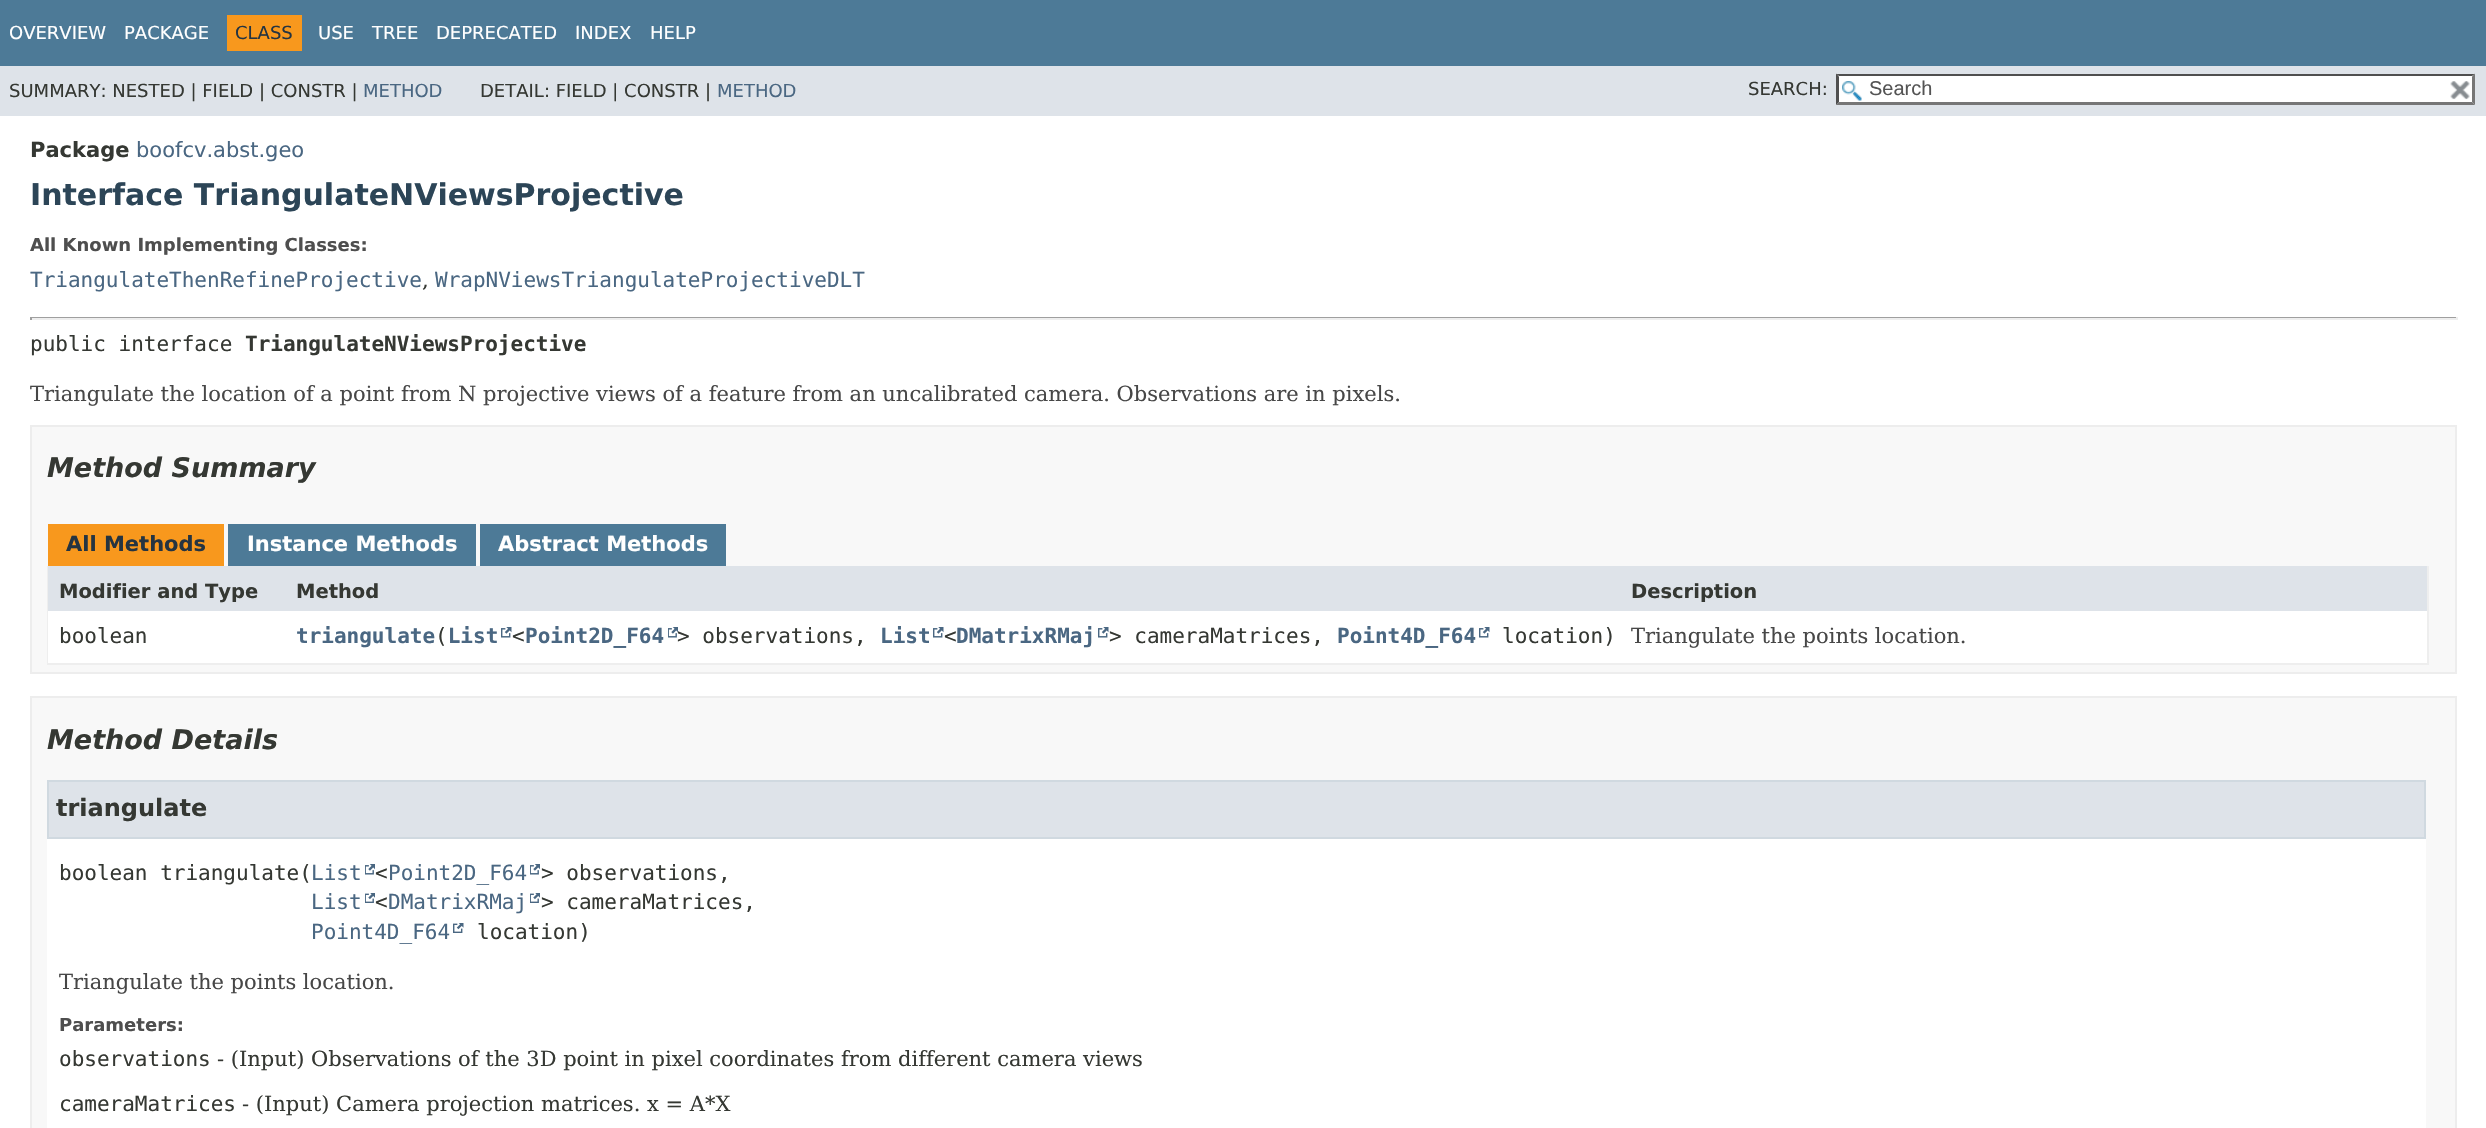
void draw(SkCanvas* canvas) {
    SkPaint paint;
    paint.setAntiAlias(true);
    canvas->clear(0xFFFFFFFF);
    paint.setColor(0xFF4D7A97);
    canvas->drawRect(SkRect::MakeXYWH(0, 0, 2486, 66), paint);
    SkFont font1(fontMgr->matchFamilyStyle("DejaVu Sans", SkFontStyle::Normal()), 18);
    font1.setSubpixel(true);
    paint.setColor(0xFFFFFFFF);
    canvas->drawString("OVERVIEW", 9, 39, font1, paint);
    canvas->drawString("PACKAGE", 124, 39, font1, paint);
    paint.setColor(0xFFF8981D);
    canvas->drawRect(SkRect::MakeXYWH(227, 15, 75, 36), paint);
    paint.setColor(0xFF253441);
    canvas->drawString("CLASS", 235, 39, font1, paint);
    paint.setColor(0xFFFFFFFF);
    canvas->drawString("USE", 318, 39, font1, paint);
    canvas->drawString("TREE", 372, 39, font1, paint);
    canvas->drawString("DEPRECATED", 436, 39, font1, paint);
    canvas->drawString("INDEX", 575, 39, font1, paint);
    canvas->drawString("HELP", 650, 39, font1, paint);
    paint.setColor(0xFFDEE3E9);
    canvas->drawRect(SkRect::MakeXYWH(0, 66, 2486, 50), paint);
    paint.setColor(0xFF353833);
    canvas->drawString("SUMMARY: NESTED | FIELD | CONSTR |", 9, 97, font1, paint);
    paint.setColor(0xFF4A6782);
    canvas->drawString("METHOD", 363, 97, font1, paint);
    paint.setColor(0xFF353833);
    canvas->drawString("DETAIL: FIELD | CONSTR |", 480, 97, font1, paint);
    paint.setColor(0xFF4A6782);
    canvas->drawString("METHOD", 717, 97, font1, paint);
    paint.setColor(0xFF353833);
    canvas->drawString("SEARCH:", 1748, 95, font1, paint);
    paint.setColor(0xFFFFFFFF);
    canvas->drawRect(SkRect::MakeXYWH(1836, 74, 639, 31), paint);
    canvas->drawImageRect(SkImages::DeferredFromEncodedData(SkData::MakeFromFileName("img1.png")), SkRect::MakeXYWH(1842, 81, 20, 20), SkSamplingOptions());
    paint.setColor(0xFF4F4F4F);
    canvas->drawPath(SkPathBuilder().moveTo(1836, 74).lineTo(2475, 74).lineTo(2472, 76).lineTo(1839, 76).close().detach(), paint);
    paint.setColor(0xFF767676);
    canvas->drawPath(SkPathBuilder().moveTo(2475, 73.5f).lineTo(2475, 105).lineTo(2472, 102).lineTo(2472, 76.5f).close().detach(), paint);
    canvas->drawPath(SkPathBuilder().moveTo(2475, 105).lineTo(1836, 105).lineTo(1839, 102).lineTo(2472, 102).close().detach(), paint);
    paint.setColor(0xFF4F4F4F);
    canvas->drawPath(SkPathBuilder().moveTo(1836, 105).lineTo(1836, 73.5f).lineTo(1839, 76.5f).lineTo(1839, 102).close().detach(), paint);
    SkFont font2(fontMgr->matchFamilyStyle("Liberation Sans", SkFontStyle::Normal()), 20);
    font2.setSubpixel(true);
    paint.setColor(0xFF545454);
    canvas->drawString("Search", 1869, 95, font2, paint);
    canvas->drawImageRect(SkImages::DeferredFromEncodedData(SkData::MakeFromFileName("img2.png")), SkRect::MakeXYWH(2450, 81, 20, 19), SkSamplingOptions());
    SkFont font3(fontMgr->matchFamilyStyle("DejaVu Sans", SkFontStyle::Bold()), 21);
    font3.setSubpixel(true);
    paint.setColor(0xFF353833);
    canvas->drawString("Package", 30, 157, font3, paint);
    SkFont font4(fontMgr->matchFamilyStyle("DejaVu Sans", SkFontStyle::Normal()), 21);
    font4.setSubpixel(true);
    paint.setColor(0xFF4A6782);
    canvas->drawString("boofcv.abst.geo", 136, 157, font4, paint);
    SkFont font5(fontMgr->matchFamilyStyle("DejaVu Sans", SkFontStyle::Bold()), 30);
    font5.setSubpixel(true);
    paint.setColor(0xFF2C4557);
    canvas->drawString("Interface TriangulateNViewsProjective", 30, 205, font5, paint);
    SkFont font6(fontMgr->matchFamilyStyle("DejaVu Sans", SkFontStyle::Bold()), 18);
    font6.setSubpixel(true);
    paint.setColor(0xFF4E4E4E);
    canvas->drawString("All Known Implementing Classes:", 30, 251, font6, paint);
    SkFont font7(fontMgr->matchFamilyStyle("DejaVu Sans Mono", SkFontStyle::Normal()), 21);
    font7.setSubpixel(true);
    paint.setColor(0xFF4A6782);
    canvas->drawString("TriangulateThenRefineProjective", 30, 287, font7, paint);
    SkFont font8(fontMgr->matchFamilyStyle("DejaVu Serif", SkFontStyle::Normal()), 21);
    font8.setSubpixel(true);
    paint.setColor(0xFF353833);
    canvas->drawString(",", 422, 287, font8, paint);
    paint.setColor(0xFF4A6782);
    canvas->drawString("WrapNViewsTriangulateProjectiveDLT", 435, 287, font7, paint);
    paint.setColor(0xFF9F9F9F);
    canvas->drawRect(SkRect::MakeXYWH(30, 317, 2427, 1), paint);
    paint.setColor(0xFFEEEEEE);
    canvas->drawRect(SkRect::MakeXYWH(2456, 317, 2, 3), paint);
    canvas->drawRect(SkRect::MakeXYWH(30, 318, 2427, 2), paint);
    paint.setColor(0xFF9F9F9F);
    canvas->drawRect(SkRect::MakeXYWH(30, 317, 2, 3), paint);
    paint.setColor(0xFF353833);
    canvas->drawString("public interface", 30, 351, font7, paint);
    SkFont font9(fontMgr->matchFamilyStyle("DejaVu Sans Mono", SkFontStyle::Bold()), 21);
    font9.setSubpixel(true);
    canvas->drawString("TriangulateNViewsProjective", 245, 351, font9, paint);
    paint.setColor(0xFF474747);
    canvas->drawString("Triangulate the location of a point from N projective views of a feature from an uncalibrated camera. Observations are in pixels.", 30, 401, font8, paint);
    paint.setColor(0xFFF8F8F8);
    canvas->drawRect(SkRect::MakeXYWH(31, 426, 2425, 247), paint);
    paint.setStyle(SkPaint::kStroke_Style);
    paint.setStrokeWidth(2);
    paint.setColor(0xFFEDEDED);
    canvas->drawRect(SkRect::MakeXYWH(31, 426, 2425, 247), paint);
    SkFont font10(fontMgr->matchFamilyStyle("DejaVu Sans", SkFontStyle::BoldItalic()), 27);
    font10.setSubpixel(true);
    paint.setStyle(SkPaint::kFill_Style);
    paint.setColor(0xFF353833);
    canvas->drawString("Method Summary", 47, 477, font10, paint);
    paint.setColor(0xFFF8981D);
    canvas->drawRect(SkRect::MakeXYWH(48, 524, 176, 42), paint);
    paint.setColor(0xFF253441);
    canvas->drawString("All Methods", 66, 551, font3, paint);
    paint.setColor(0xFF4D7A97);
    canvas->drawRect(SkRect::MakeXYWH(228, 524, 248, 42), paint);
    paint.setColor(0xFFFFFFFF);
    canvas->drawString("Instance Methods", 247, 551, font3, paint);
    paint.setColor(0xFF4D7A97);
    canvas->drawRect(SkRect::MakeXYWH(480, 524, 246, 42), paint);
    paint.setColor(0xFFFFFFFF);
    canvas->drawString("Abstract Methods", 498, 551, font3, paint);
    paint.setColor(0xFFEEEEEE);
    canvas->drawRect(SkRect::MakeXYWH(2427, 566, 2, 99), paint);
    canvas->drawRect(SkRect::MakeXYWH(47, 663, 2382, 2), paint);
    canvas->drawRect(SkRect::MakeXYWH(47, 566, 2, 99), paint);
    paint.setColor(0xFFDEE3E9);
    canvas->drawRect(SkRect::MakeXYWH(48, 566, 1572, 45), paint);
    SkFont font11(fontMgr->matchFamilyStyle("DejaVu Sans", SkFontStyle::Bold()), 19.5f);
    font11.setSubpixel(true);
    paint.setColor(0xFF353833);
    canvas->drawString("Modifier and Type", 59, 598, font11, paint);
    canvas->drawString("Method", 296, 598, font11, paint);
    paint.setColor(0xFFDEE3E9);
    canvas->drawRect(SkRect::MakeXYWH(1620, 566, 807, 45), paint);
    paint.setColor(0xFF353833);
    canvas->drawString("Description", 1631, 598, font11, paint);
    paint.setColor(0xFFFFFFFF);
    canvas->drawRect(SkRect::MakeXYWH(48, 611, 1572, 52), paint);
    paint.setColor(0xFF353833);
    canvas->drawString("boolean", 59, 643, font7, paint);
    paint.setColor(0xFF4A6782);
    canvas->drawString("triangulate List", 296, 643, font9, paint);
    canvas->drawString("Point2D_F64", 525, 643, font9, paint);
    canvas->drawImageRect(SkImages::DeferredFromEncodedData(SkData::MakeFromFileName("img3.png")), SkRect::MakeXYWH(668, 627, 10, 11), SkSamplingOptions());
    canvas->drawString("List", 880, 643, font9, paint);
    canvas->drawImageRect(SkImages::DeferredFromEncodedData(SkData::MakeFromFileName("img4.png")), SkRect::MakeXYWH(933, 627, 11, 11), SkSamplingOptions());
    canvas->drawString("DMatrixRMaj", 956, 643, font9, paint);
    canvas->drawImageRect(SkImages::DeferredFromEncodedData(SkData::MakeFromFileName("img4.png")), SkRect::MakeXYWH(1098, 627, 11, 11), SkSamplingOptions());
    canvas->drawString("Point4D_F64", 1337, 643, font9, paint);
    canvas->drawImageRect(SkImages::DeferredFromEncodedData(SkData::MakeFromFileName("img4.png")), SkRect::MakeXYWH(1479, 627, 11, 11), SkSamplingOptions());
    paint.setColor(0xFF353833);
    canvas->drawString("location)", 1502, 643, font7, paint);
    canvas->drawString("(", 435, 643, font7, paint);
    canvas->drawImageRect(SkImages::DeferredFromEncodedData(SkData::MakeFromFileName("img4.png")), SkRect::MakeXYWH(501, 627, 11, 11), SkSamplingOptions());
    canvas->drawString("<", 512, 643, font7, paint);
    canvas->drawString("> observations,", 677, 643, font7, paint);
    canvas->drawString("<", 944, 643, font7, paint);
    canvas->drawString("> cameraMatrices,", 1109, 643, font7, paint);
    paint.setColor(0xFFFFFFFF);
    canvas->drawRect(SkRect::MakeXYWH(1620, 611, 807, 52), paint);
    paint.setColor(0xFF474747);
    canvas->drawString("Triangulate the points location.", 1631, 643, font8, paint);
    paint.setColor(0xFFF8F8F8);
    canvas->drawRect(SkRect::MakeXYWH(31, 697, 2425, 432), paint);
    paint.setStyle(SkPaint::kStroke_Style);
    paint.setColor(0xFFEDEDED);
    canvas->drawRect(SkRect::MakeXYWH(31, 697, 2425, 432), paint);
    paint.setStyle(SkPaint::kFill_Style);
    paint.setColor(0xFF353833);
    canvas->drawString("Method Details", 47, 749, font10, paint);
    paint.setColor(0xFFFFFFFF);
    canvas->drawRect(SkRect::MakeXYWH(47, 839, 2379, 289), paint);
    paint.setColor(0xFFDEE3E9);
    canvas->drawRect(SkRect::MakeXYWH(48, 781, 2377, 57), paint);
    paint.setStyle(SkPaint::kStroke_Style);
    paint.setColor(0xFFD0D9E0);
    canvas->drawRect(SkRect::MakeXYWH(48, 781, 2377, 57), paint);
    SkFont font12(fontMgr->matchFamilyStyle("DejaVu Sans", SkFontStyle::Bold()), 24);
    font12.setSubpixel(true);
    paint.setStyle(SkPaint::kFill_Style);
    paint.setColor(0xFF353833);
    canvas->drawString("triangulate", 56, 816, font12, paint);
    canvas->drawString("boolean triangulate(", 59, 880, font7, paint);
    paint.setColor(0xFF4A6782);
    canvas->drawString("List", 311, 880, font7, paint);
    canvas->drawImageRect(SkImages::DeferredFromEncodedData(SkData::MakeFromFileName("img3.png")), SkRect::MakeXYWH(365, 864, 10, 11), SkSamplingOptions());
    paint.setColor(0xFF353833);
    canvas->drawString("<", 375, 880, font7, paint);
    paint.setColor(0xFF4A6782);
    canvas->drawString("Point2D_F64", 388, 880, font7, paint);
    canvas->drawImageRect(SkImages::DeferredFromEncodedData(SkData::MakeFromFileName("img3.png")), SkRect::MakeXYWH(530, 864, 10, 11), SkSamplingOptions());
    paint.setColor(0xFF353833);
    canvas->drawString("> observations,", 541, 880, font7, paint);
    paint.setColor(0xFF4A6782);
    canvas->drawString("List", 311, 909, font7, paint);
    canvas->drawImageRect(SkImages::DeferredFromEncodedData(SkData::MakeFromFileName("img5.png")), SkRect::MakeXYWH(365, 893, 10, 10), SkSamplingOptions());
    paint.setColor(0xFF353833);
    canvas->drawString("<", 375, 909, font7, paint);
    paint.setColor(0xFF4A6782);
    canvas->drawString("DMatrixRMaj", 388, 909, font7, paint);
    canvas->drawImageRect(SkImages::DeferredFromEncodedData(SkData::MakeFromFileName("img5.png")), SkRect::MakeXYWH(530, 893, 10, 10), SkSamplingOptions());
    paint.setColor(0xFF353833);
    canvas->drawString("> cameraMatrices,", 541, 909, font7, paint);
    paint.setColor(0xFF4A6782);
    canvas->drawString("Point4D_F64", 311, 939, font7, paint);
    canvas->drawImageRect(SkImages::DeferredFromEncodedData(SkData::MakeFromFileName("img6.png")), SkRect::MakeXYWH(453, 923, 11, 10), SkSamplingOptions());
    paint.setColor(0xFF353833);
    canvas->drawString("location)", 477, 939, font7, paint);
    paint.setColor(0xFF474747);
    canvas->drawString("Triangulate the points location.", 59, 989, font8, paint);
    paint.setColor(0xFF4E4E4E);
    canvas->drawString("Parameters:", 59, 1031, font6, paint);
    paint.setColor(0xFF353833);
    canvas->drawString("observations", 59, 1066, font7, paint);
    canvas->drawString("- (Input) Observations of the 3D point in pixel coordinates from different camera views", 217, 1066, font8, paint);
    canvas->drawString("cameraMatrices", 59, 1111, font7, paint);
    canvas->drawString("- (Input) Camera projection matrices. x = A*X", 242, 1111, font8, paint);
}
